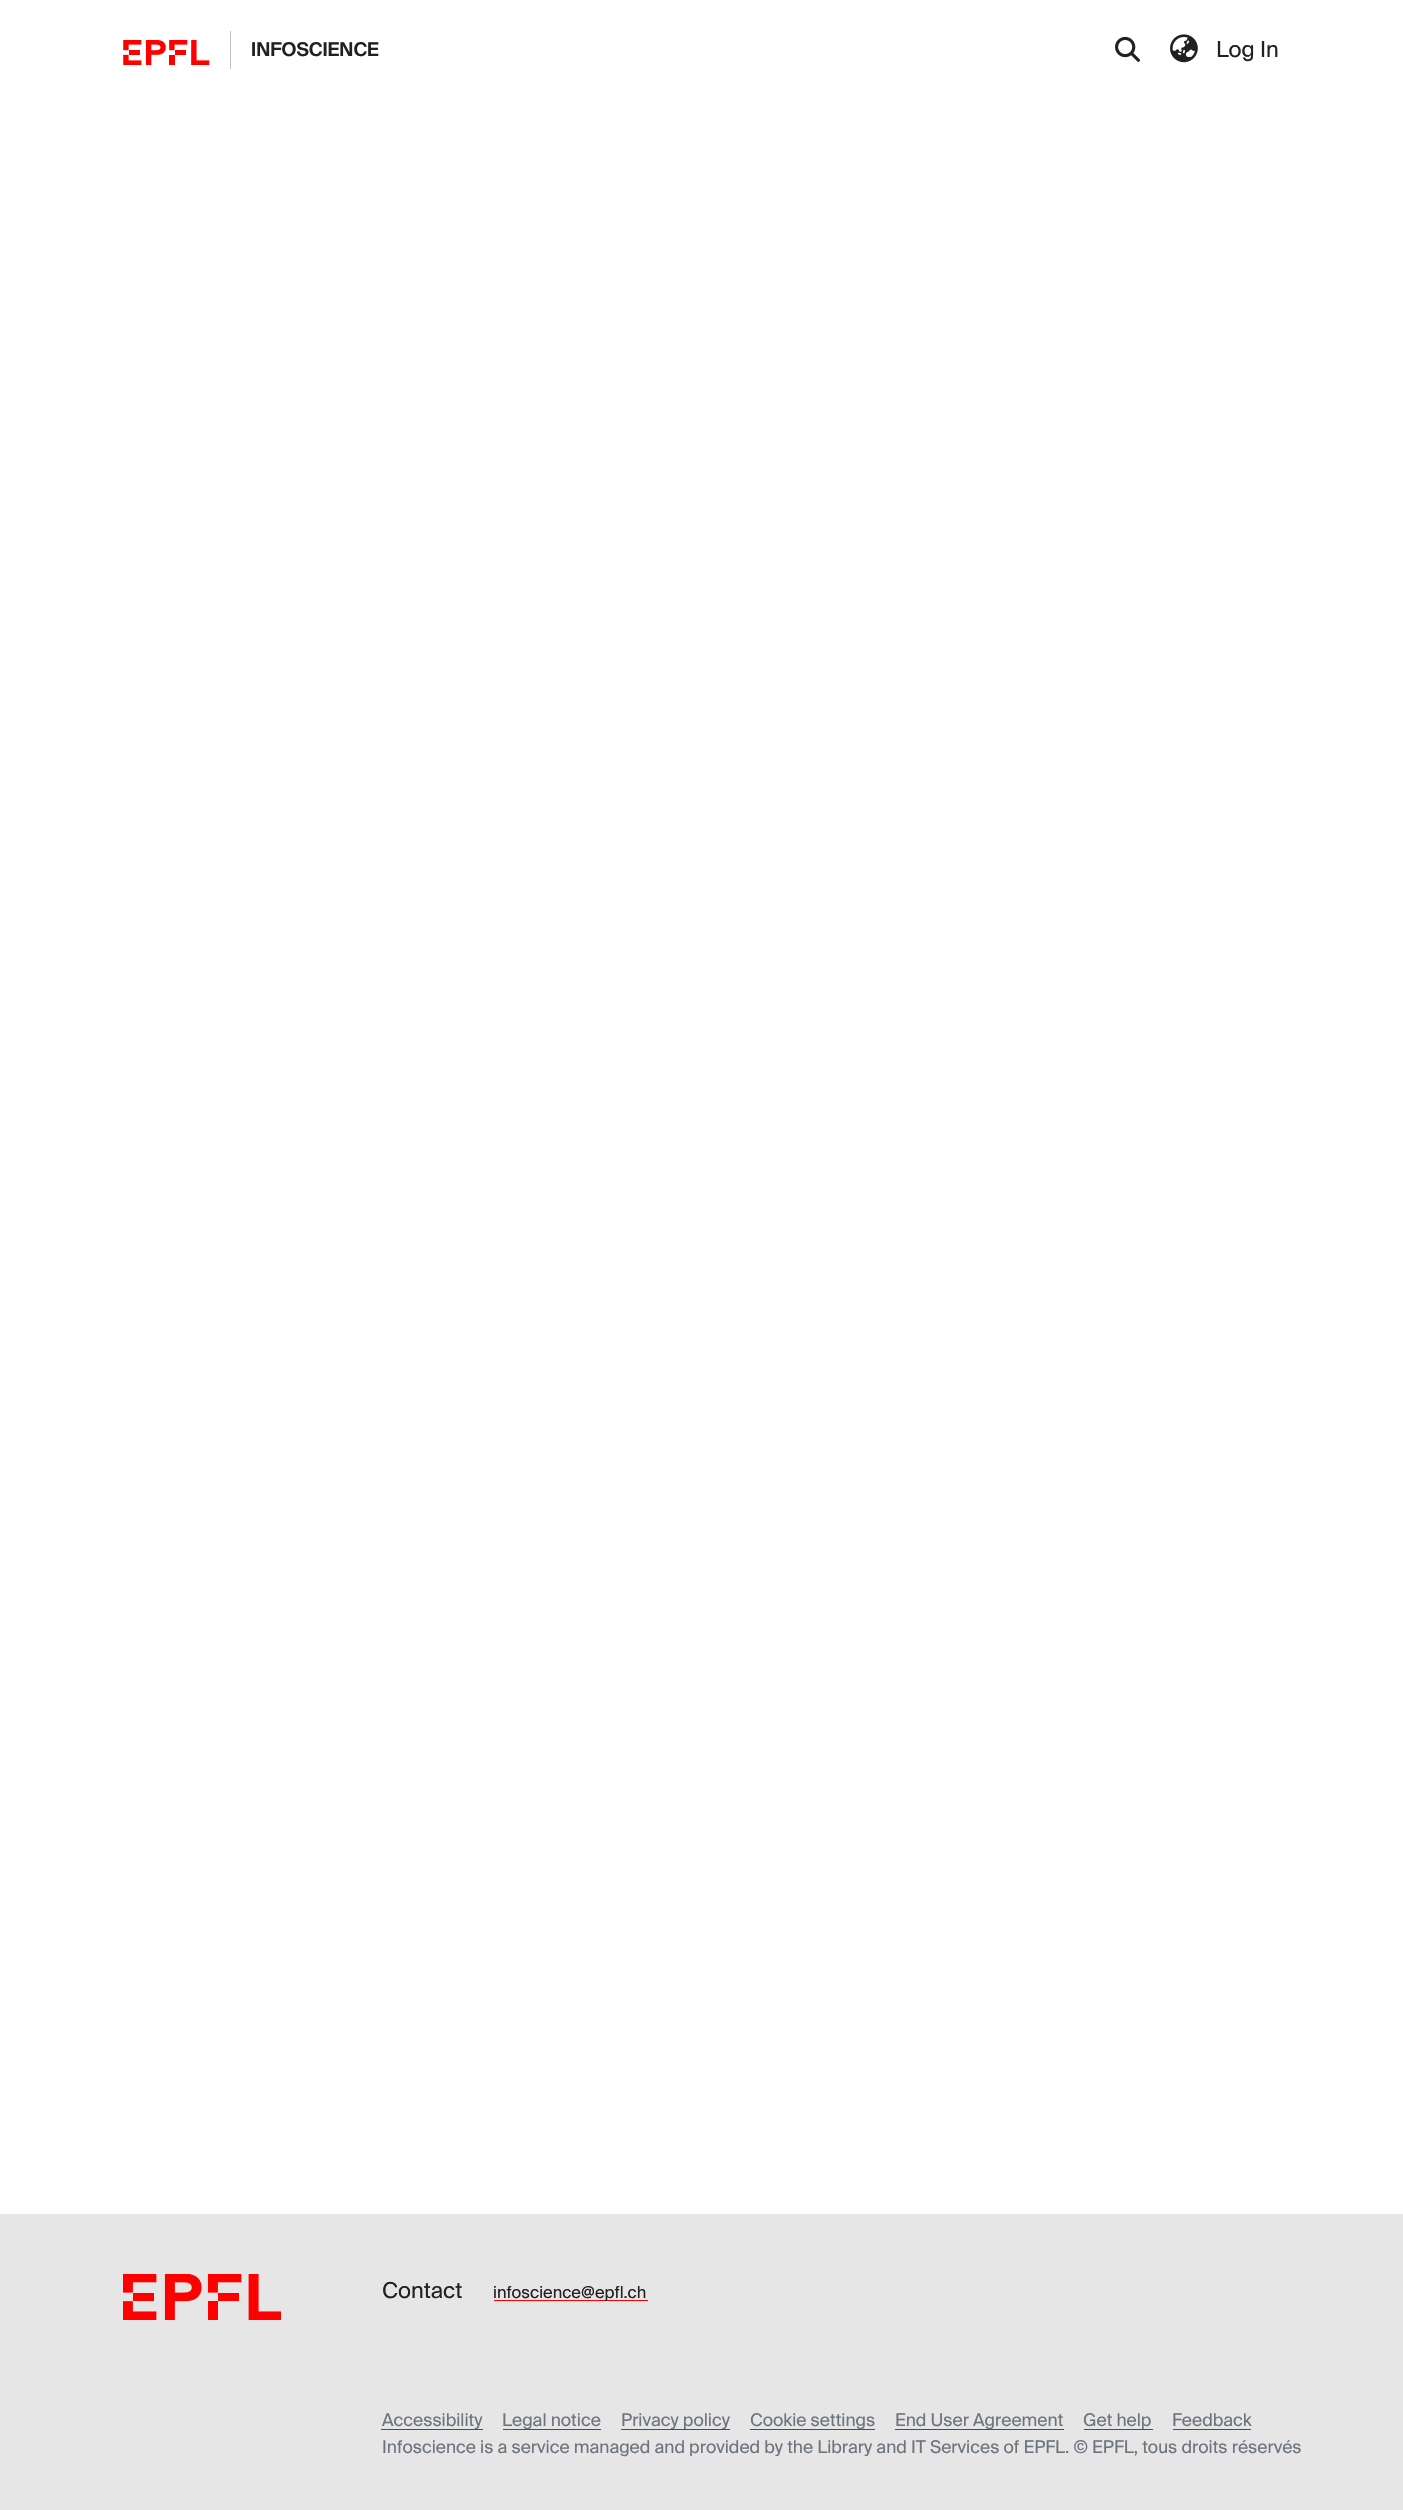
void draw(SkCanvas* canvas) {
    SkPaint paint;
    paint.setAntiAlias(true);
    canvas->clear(0xFFFFFFFF);
    paint.setColor(0xFFC1C1C1);
    canvas->drawRect(SkRect::MakeXYWH(230, 31, 1, 38), paint);
    canvas->drawImageRect(SkImages::DeferredFromEncodedData(SkData::MakeFromFileName("img1.png")), SkRect::MakeXYWH(123, 40, 87, 25), SkSamplingOptions());
    SkFont font1(fontMgr->matchFamilyStyle("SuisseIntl", SkFontStyle(600, SkFontStyle::kNormal_Width, SkFontStyle::kUpright_Slant)), 19);
    font1.setSubpixel(true);
    paint.setColor(0xFF212121);
    canvas->drawString("INFOSCIENCE", 251, 56, font1, paint);
    canvas->drawImageRect(SkImages::DeferredFromEncodedData(SkData::MakeFromFileName("img2.png")), SkRect::MakeXYWH(1115, 36, 25, 26), SkSamplingOptions());
    canvas->drawImageRect(SkImages::DeferredFromEncodedData(SkData::MakeFromFileName("img3.png")), SkRect::MakeXYWH(1170, 34, 28, 29), SkSamplingOptions());
    SkFont font2(fontMgr->matchFamilyStyle("SuisseIntl", SkFontStyle::Normal()), 22);
    font2.setSubpixel(true);
    canvas->drawString("Log In", 1216, 57, font2, paint);
    paint.setColor(0xFFE6E6E6);
    canvas->drawRect(SkRect::MakeXYWH(0, 2214, 1403, 296), paint);
    canvas->drawImageRect(SkImages::DeferredFromEncodedData(SkData::MakeFromFileName("img4.png")), SkRect::MakeXYWH(123, 2274, 158, 46), SkSamplingOptions());
    paint.setColor(0xFF212121);
    canvas->drawString("Contact", 382, 2298, font2, paint);
    paint.setColor(0xFFFF0000);
    canvas->drawRect(SkRect::MakeXYWH(494, 2300, 154, 1), paint);
    SkFont font3(fontMgr->matchFamilyStyle("SuisseIntl", SkFontStyle::Normal()), 16.5f);
    font3.setSubpixel(true);
    paint.setColor(0xFF212121);
    canvas->drawString("infoscience@epfl.ch", 493, 2298, font3, paint);
    paint.setColor(0xFFFF0000);
    canvas->drawRect(SkRect::MakeXYWH(381, 2429, 102, 1), paint);
    SkFont font4(fontMgr->matchFamilyStyle("SuisseIntl", SkFontStyle::Normal()), 17.5f);
    font4.setSubpixel(true);
    paint.setColor(0xFF6C757D);
    canvas->drawString("Accessibility", 382, 2426, font4, paint);
    paint.setColor(0xFFFF0000);
    canvas->drawRect(SkRect::MakeXYWH(503, 2429, 98, 1), paint);
    paint.setColor(0xFF6C757D);
    canvas->drawString("Legal notice", 502, 2426, font4, paint);
    paint.setColor(0xFFFF0000);
    canvas->drawRect(SkRect::MakeXYWH(621, 2429, 109, 1), paint);
    paint.setColor(0xFF6C757D);
    canvas->drawString("Privacy policy", 621, 2426, font4, paint);
    paint.setColor(0xFFFF0000);
    canvas->drawRect(SkRect::MakeXYWH(750, 2429, 125, 1), paint);
    paint.setColor(0xFF6C757D);
    canvas->drawString("Cookie settings", 750, 2426, font4, paint);
    paint.setColor(0xFFFF0000);
    canvas->drawRect(SkRect::MakeXYWH(895, 2429, 169, 1), paint);
    paint.setColor(0xFF6C757D);
    canvas->drawString("End User Agreement", 895, 2426, font4, paint);
    paint.setColor(0xFFFF0000);
    canvas->drawRect(SkRect::MakeXYWH(1084, 2429, 69, 1), paint);
    paint.setColor(0xFF6C757D);
    canvas->drawString("Get help", 1083, 2426, font4, paint);
    canvas->drawString("Feedback", 1172, 2426, font4, paint);
    paint.setColor(0xFFFF0000);
    canvas->drawRect(SkRect::MakeXYWH(1173, 2429, 78, 1), paint);
    paint.setColor(0xFF6C757D);
    canvas->drawString("Infoscience is a service managed and provided by the Library and IT Services of EPFL. © EPFL, tous droits réservés", 382, 2453, font4, paint);
}
